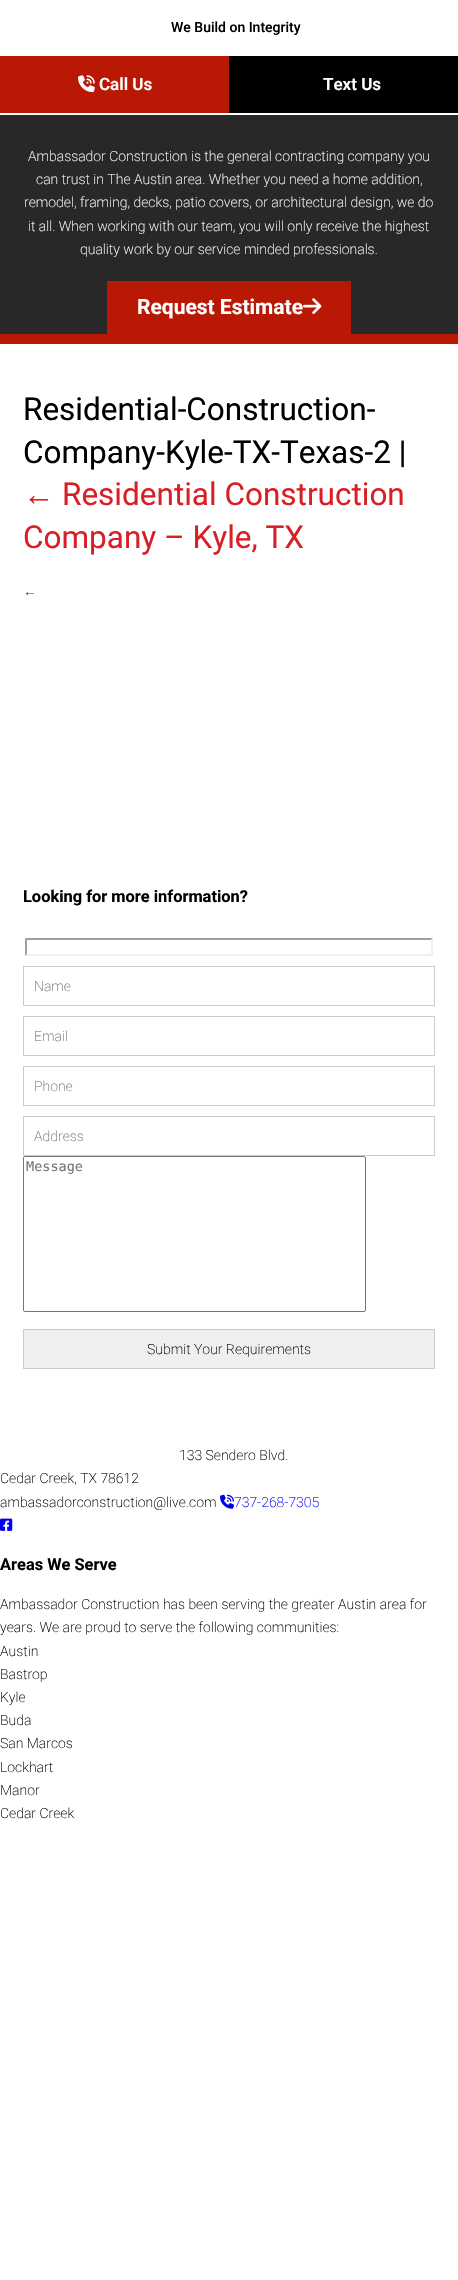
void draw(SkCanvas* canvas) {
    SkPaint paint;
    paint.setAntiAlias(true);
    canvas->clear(0xFFFFFFFF);
    SkFont font1(fontMgr->matchFamilyStyle("Roboto", SkFontStyle(500, SkFontStyle::kNormal_Width, SkFontStyle::kUpright_Slant)), 14);
    font1.setSubpixel(true);
    paint.setColor(0xFF000000);
    canvas->drawString("We Build on Integrity", 171, 32, font1, paint);
    paint.setColor(0xFFB91805);
    canvas->drawRect(SkRect::MakeXYWH(0, 56, 229, 57), paint);
    canvas->drawImageRect(SkImages::DeferredFromEncodedData(SkData::MakeFromFileName("img1.png")), SkRect::MakeXYWH(78, 75, 17, 18), SkSamplingOptions());
    SkFont font2(fontMgr->matchFamilyStyle("Roboto", SkFontStyle(600, SkFontStyle::kNormal_Width, SkFontStyle::kUpright_Slant)), 17);
    font2.setSubpixel(true);
    paint.setColor(0xFFFFFFFF);
    canvas->drawString("Call Us", 99, 90, font2, paint);
    paint.setColor(0xFF000000);
    canvas->drawRect(SkRect::MakeXYWH(229, 56, 229, 57), paint);
    paint.setColor(0xFFFFFFFF);
    canvas->drawString("Text Us", 323, 90, font2, paint);
    paint.setColor(0xFF282828);
    canvas->drawRect(SkRect::MakeXYWH(0, 115, 458, 219), paint);
    paint.setColor(0xFFB91805);
    canvas->drawRect(SkRect::MakeXYWH(0, 334, 458, 10), paint);
    SkFont font3(fontMgr->matchFamilyStyle("Roboto", SkFontStyle(200, SkFontStyle::kNormal_Width, SkFontStyle::kUpright_Slant)), 14);
    font3.setSubpixel(true);
    paint.setColor(0xFFFFFFFF);
    canvas->drawString("Ambassador Construction is the general contracting company you", 28, 161, font3, paint);
    canvas->drawString("can trust in The Austin area. Whether you need a home addition,", 36, 184, font3, paint);
    canvas->drawString("remodel, framing, decks, patio covers, or architectural design, we do", 24, 207, font3, paint);
    canvas->drawString("it all. When working with our team, you will only receive the highest", 28, 231, font3, paint);
    canvas->drawString("quality work by our service minded professionals.", 80, 254, font3, paint);
    paint.setColor(0xFFB91805);
    canvas->drawRect(SkRect::MakeXYWH(107, 281, 244, 53), paint);
    SkFont font4(fontMgr->matchFamilyStyle("Roboto", SkFontStyle::Bold()), 21);
    font4.setSubpixel(true);
    paint.setColor(0xFFFFFFFF);
    canvas->drawString("Request Estimate", 137, 314, font4, paint);
    canvas->drawImageRect(SkImages::DeferredFromEncodedData(SkData::MakeFromFileName("img2.png")), SkRect::MakeXYWH(303, 298, 19, 16), SkSamplingOptions());
    SkFont font5(fontMgr->matchFamilyStyle("Roboto", SkFontStyle::Normal()), 31.5f);
    font5.setSubpixel(true);
    paint.setColor(0xFF000000);
    canvas->drawString("Residential-Construction-", 23, 420, font5, paint);
    canvas->drawString("Company-Kyle-TX-Texas-2 |", 23, 463, font5, paint);
    SkFont font6(fontMgr->matchFamilyStyle("Liberation Sans", SkFontStyle::Normal()), 31.5f);
    font6.setSubpixel(true);
    paint.setColor(0xFFD91F26);
    canvas->drawString("←", 23, 505, font6, paint);
    canvas->drawString("Residential Construction", 62, 505, font5, paint);
    canvas->drawString("Company – Kyle, TX", 23, 548, font5, paint);
    SkFont font7(fontMgr->matchFamilyStyle("Liberation Sans", SkFontStyle::Normal()), 14);
    font7.setSubpixel(true);
    canvas->drawString("←", 23, 596, font7, paint);
    SkFont font8(fontMgr->matchFamilyStyle("Roboto", SkFontStyle::Bold()), 16.4f);
    font8.setSubpixel(true);
    paint.setColor(0xFF000000);
    canvas->drawString("Looking for more information?", 23, 902, font8, paint);
    paint.setColor(0xFF9F9F9F);
    canvas->drawPath(SkPathBuilder().moveTo(25, 938).lineTo(433, 938).lineTo(431, 940).lineTo(27, 940).close().detach(), paint);
    paint.setColor(0xFFEFEFEF);
    canvas->drawPath(SkPathBuilder().moveTo(433, 938).lineTo(433, 956).lineTo(431, 954).lineTo(431, 940).close().detach(), paint);
    canvas->drawPath(SkPathBuilder().moveTo(433, 956).lineTo(25, 956).lineTo(27, 954).lineTo(431, 954).close().detach(), paint);
    paint.setColor(0xFF9F9F9F);
    canvas->drawPath(SkPathBuilder().moveTo(25, 956).lineTo(25, 938).lineTo(27, 940).lineTo(27, 954).close().detach(), paint);
    paint.setStyle(SkPaint::kStroke_Style);
    paint.setStrokeWidth(1);
    paint.setColor(0xFFCCCCCC);
    canvas->drawRect(SkRect::MakeXYWH(23.5f, 966.5f, 411, 39), paint);
    paint.setStyle(SkPaint::kFill_Style);
    paint.setColor(0xFF757575);
    canvas->drawString("Name", 34, 991, font3, paint);
    paint.setStyle(SkPaint::kStroke_Style);
    paint.setColor(0xFFCCCCCC);
    canvas->drawRect(SkRect::MakeXYWH(23.5f, 1016.5f, 411, 39), paint);
    paint.setStyle(SkPaint::kFill_Style);
    paint.setColor(0xFF757575);
    canvas->drawString("Email", 34, 1041, font3, paint);
    paint.setStyle(SkPaint::kStroke_Style);
    paint.setColor(0xFFCCCCCC);
    canvas->drawRect(SkRect::MakeXYWH(23.5f, 1066.5f, 411, 39), paint);
    paint.setStyle(SkPaint::kFill_Style);
    paint.setColor(0xFF757575);
    canvas->drawString("Phone", 34, 1091, font3, paint);
    paint.setStyle(SkPaint::kStroke_Style);
    paint.setColor(0xFFCCCCCC);
    canvas->drawRect(SkRect::MakeXYWH(23.5f, 1116.5f, 411, 39), paint);
    paint.setStyle(SkPaint::kFill_Style);
    paint.setColor(0xFF757575);
    canvas->drawString("Address", 34, 1141, font3, paint);
    paint.setStyle(SkPaint::kStroke_Style);
    paint.setColor(0xFF767676);
    canvas->drawRoundRect(SkRect::MakeXYWH(23.5f, 1156.5f, 342, 155), 1.5f, 1.5f, paint);
    SkFont font9(fontMgr->matchFamilyStyle("DejaVu Sans Mono", SkFontStyle::Normal()), 13.5f);
    font9.setSubpixel(true);
    paint.setStyle(SkPaint::kFill_Style);
    paint.setColor(0xFF757575);
    canvas->drawString("Message", 26, 1171, font9, paint);
    paint.setColor(0xFFEFEFEF);
    canvas->drawRect(SkRect::MakeXYWH(23.5f, 1329.5f, 411, 39), paint);
    paint.setStyle(SkPaint::kStroke_Style);
    paint.setColor(0xFFCCCCCC);
    canvas->drawRect(SkRect::MakeXYWH(23.5f, 1329.5f, 411, 39), paint);
    paint.setStyle(SkPaint::kFill_Style);
    paint.setColor(0xFF000000);
    canvas->drawString("Submit Your Requirements", 147, 1354, font3, paint);
    canvas->drawString("133 Sendero Blvd.", 179, 1460, font3, paint);
    canvas->drawString("Cedar Creek, TX 78612", 0, 1483, font3, paint);
    canvas->drawString("ambassadorconstruction@live.com", 0, 1507, font3, paint);
    canvas->drawImageRect(SkImages::DeferredFromEncodedData(SkData::MakeFromFileName("img3.png")), SkRect::MakeXYWH(220, 1494, 14, 15), SkSamplingOptions());
    paint.setColor(0xFF0000EE);
    canvas->drawString("737-268-7305", 234, 1507, font3, paint);
    canvas->drawImageRect(SkImages::DeferredFromEncodedData(SkData::MakeFromFileName("img4.png")), SkRect::MakeXYWH(0, 1518, 13, 13), SkSamplingOptions());
    paint.setColor(0xFF000000);
    canvas->drawString("Areas We Serve", 0, 1570, font8, paint);
    canvas->drawString("Ambassador Construction has been serving the greater Austin area for", 0, 1609, font3, paint);
    canvas->drawString("years. We are proud to serve the following communities:", 0, 1632, font3, paint);
    canvas->drawString("Austin", 0, 1656, font3, paint);
    canvas->drawString("Bastrop", 0, 1679, font3, paint);
    canvas->drawString("Kyle", 0, 1702, font3, paint);
    canvas->drawString("Buda", 0, 1725, font3, paint);
    canvas->drawString("San Marcos", 0, 1748, font3, paint);
    canvas->drawString("Lockhart", 0, 1772, font3, paint);
    canvas->drawString("Manor", 0, 1795, font3, paint);
    canvas->drawString("Cedar Creek", 0, 1818, font3, paint);
}
